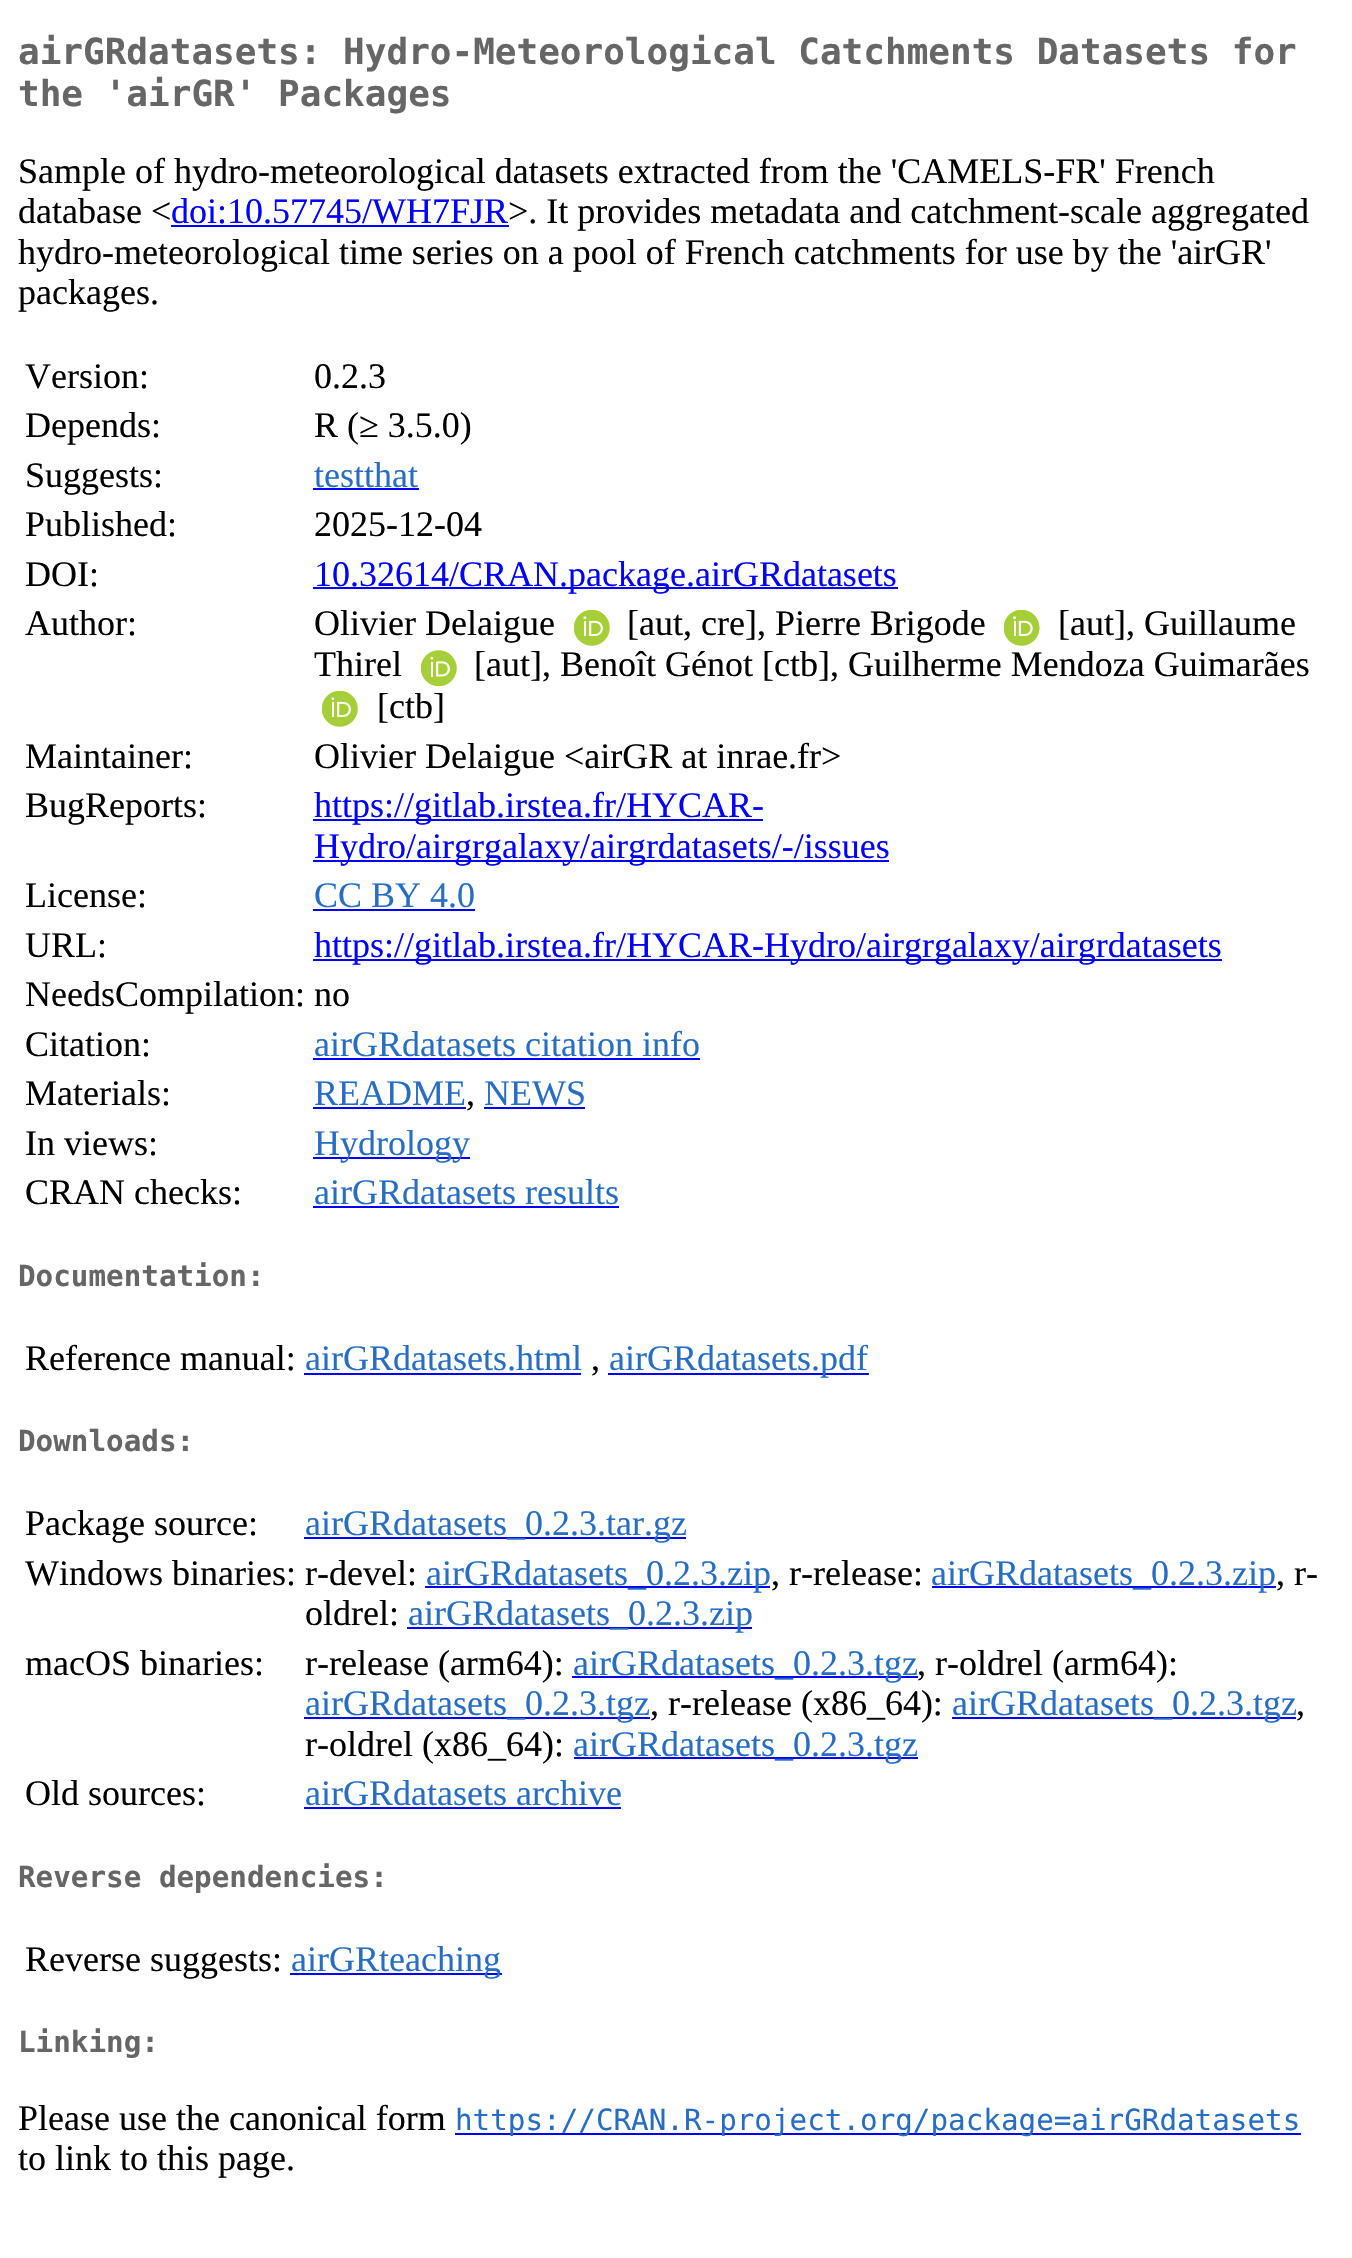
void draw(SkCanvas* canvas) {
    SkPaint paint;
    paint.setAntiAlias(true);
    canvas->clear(0xFFFFFFFF);
    SkFont font1(fontMgr->matchFamilyStyle("DejaVu Sans Mono", SkFontStyle::Bold()), 36);
    font1.setSubpixel(true);
    paint.setColor(0xFF666666);
    canvas->drawString("airGRdatasets: Hydro-Meteorological Catchments Datasets for", 18, 64, font1, paint);
    canvas->drawString("the 'airGR' Packages", 18, 106, font1, paint);
    SkFont font2(fontMgr->matchFamilyStyle("Liberation Serif", SkFontStyle::Normal()), 36);
    font2.setSubpixel(true);
    paint.setColor(0xFF000000);
    canvas->drawString("Sample of hydro-meteorological datasets extracted from the 'CAMELS-FR' French", 18, 183, font2, paint);
    canvas->drawString("database <", 18, 223, font2, paint);
    paint.setColor(0xFF0000FF);
    canvas->drawString("doi:10.57745/WH7FJR", 171, 223, font2, paint);
    canvas->drawRect(SkRect::MakeXYWH(171, 225, 338, 2), paint);
    paint.setColor(0xFF000000);
    canvas->drawString(">. It provides metadata and catchment-scale aggregated", 508, 223, font2, paint);
    canvas->drawString("hydro-meteorological time series on a pool of French catchments for use by the 'airGR'", 18, 264, font2, paint);
    canvas->drawString("packages.", 18, 304, font2, paint);
    canvas->drawString("Version:", 25, 388, font2, paint);
    canvas->drawString("0.2.3", 314, 388, font2, paint);
    canvas->drawString("Depends:", 25, 437, font2, paint);
    canvas->drawString("R (≥ 3.5.0)", 314, 437, font2, paint);
    canvas->drawString("Suggests:", 25, 487, font2, paint);
    paint.setColor(0xFF276DC3);
    canvas->drawString("testthat", 314, 487, font2, paint);
    paint.setColor(0xFF0000FF);
    canvas->drawRect(SkRect::MakeXYWH(313, 488, 106, 2), paint);
    paint.setColor(0xFF000000);
    canvas->drawString("Published:", 25, 536, font2, paint);
    canvas->drawString("2025-12-04", 314, 536, font2, paint);
    canvas->drawString("DOI:", 25, 586, font2, paint);
    paint.setColor(0xFF0000FF);
    canvas->drawRect(SkRect::MakeXYWH(313, 587, 585, 2), paint);
    canvas->drawString("10.32614/CRAN.package.airGRdatasets", 314, 586, font2, paint);
    paint.setColor(0xFF000000);
    canvas->drawString("Author:", 25, 635, font2, paint);
    canvas->drawString("Olivier Delaigue", 314, 635, font2, paint);
    canvas->drawImageRect(SkImages::DeferredFromEncodedData(SkData::MakeFromFileName("img1.png")), SkRect::MakeXYWH(574, 610, 36, 36), SkSamplingOptions());
    canvas->drawString("[aut, cre], Pierre Brigode", 627, 635, font2, paint);
    canvas->drawImageRect(SkImages::DeferredFromEncodedData(SkData::MakeFromFileName("img2.png")), SkRect::MakeXYWH(1004, 610, 36, 36), SkSamplingOptions());
    canvas->drawString("[aut], Guillaume", 1058, 635, font2, paint);
    canvas->drawString("Thirel", 314, 676, font2, paint);
    canvas->drawImageRect(SkImages::DeferredFromEncodedData(SkData::MakeFromFileName("img3.png")), SkRect::MakeXYWH(421, 650, 36, 36), SkSamplingOptions());
    canvas->drawString("[aut], Benoît Génot [ctb], Guilherme Mendoza Guimarães", 474, 676, font2, paint);
    canvas->drawImageRect(SkImages::DeferredFromEncodedData(SkData::MakeFromFileName("img1.png")), SkRect::MakeXYWH(322, 691, 36, 36), SkSamplingOptions());
    canvas->drawString("[ctb]", 377, 718, font2, paint);
    canvas->drawString("Maintainer:", 25, 768, font2, paint);
    canvas->drawString("Olivier Delaigue <airGR at inrae.fr>", 314, 768, font2, paint);
    canvas->drawString("BugReports:", 25, 817, font2, paint);
    paint.setColor(0xFF0000FF);
    canvas->drawRect(SkRect::MakeXYWH(313, 819, 450, 2), paint);
    canvas->drawString("https://gitlab.irstea.fr/HYCAR-", 314, 817, font2, paint);
    canvas->drawRect(SkRect::MakeXYWH(313, 860, 576, 2), paint);
    canvas->drawString("Hydro/airgrgalaxy/airgrdatasets/-/issues", 314, 858, font2, paint);
    paint.setColor(0xFF000000);
    canvas->drawString("License:", 25, 907, font2, paint);
    paint.setColor(0xFF276DC3);
    canvas->drawString("CC BY 4.0", 314, 907, font2, paint);
    paint.setColor(0xFF0000FF);
    canvas->drawRect(SkRect::MakeXYWH(313, 909, 162, 2), paint);
    paint.setColor(0xFF000000);
    canvas->drawString("URL:", 25, 957, font2, paint);
    paint.setColor(0xFF0000FF);
    canvas->drawRect(SkRect::MakeXYWH(313, 959, 909, 2), paint);
    canvas->drawString("https://gitlab.irstea.fr/HYCAR-Hydro/airgrgalaxy/airgrdatasets", 314, 957, font2, paint);
    paint.setColor(0xFF000000);
    canvas->drawString("NeedsCompilation: no", 25, 1006, font2, paint);
    canvas->drawString("Citation:", 25, 1056, font2, paint);
    paint.setColor(0xFF276DC3);
    canvas->drawString("airGRdatasets citation info", 314, 1056, font2, paint);
    paint.setColor(0xFF0000FF);
    canvas->drawRect(SkRect::MakeXYWH(313, 1058, 387, 2), paint);
    paint.setColor(0xFF000000);
    canvas->drawString("Materials:", 25, 1105, font2, paint);
    paint.setColor(0xFF276DC3);
    canvas->drawString("README", 314, 1105, font2, paint);
    paint.setColor(0xFF0000FF);
    canvas->drawRect(SkRect::MakeXYWH(313, 1107, 153, 2), paint);
    paint.setColor(0xFF000000);
    canvas->drawString(",", 466, 1105, font2, paint);
    paint.setColor(0xFF276DC3);
    canvas->drawString("NEWS", 484, 1105, font2, paint);
    paint.setColor(0xFF0000FF);
    canvas->drawRect(SkRect::MakeXYWH(484, 1107, 101, 2), paint);
    paint.setColor(0xFF000000);
    canvas->drawString("In views:", 25, 1155, font2, paint);
    paint.setColor(0xFF0000FF);
    canvas->drawRect(SkRect::MakeXYWH(313, 1157, 157, 2), paint);
    paint.setColor(0xFF276DC3);
    canvas->drawString("Hydrology", 314, 1155, font2, paint);
    paint.setColor(0xFF000000);
    canvas->drawString("CRAN checks:", 25, 1204, font2, paint);
    paint.setColor(0xFF276DC3);
    canvas->drawString("airGRdatasets results", 314, 1204, font2, paint);
    paint.setColor(0xFF0000FF);
    canvas->drawRect(SkRect::MakeXYWH(313, 1206, 306, 2), paint);
    SkFont font3(fontMgr->matchFamilyStyle("DejaVu Sans Mono", SkFontStyle::Bold()), 29.25f);
    font3.setSubpixel(true);
    paint.setColor(0xFF666666);
    canvas->drawString("Documentation:", 18, 1286, font3, paint);
    paint.setColor(0xFF000000);
    canvas->drawString("Reference manual:", 25, 1370, font2, paint);
    paint.setColor(0xFF276DC3);
    canvas->drawString("airGRdatasets.html", 305, 1370, font2, paint);
    paint.setColor(0xFF0000FF);
    canvas->drawRect(SkRect::MakeXYWH(304, 1373, 277, 2), paint);
    paint.setColor(0xFF000000);
    canvas->drawString(",", 591, 1370, font2, paint);
    paint.setColor(0xFF0000FF);
    canvas->drawRect(SkRect::MakeXYWH(608, 1373, 261, 2), paint);
    paint.setColor(0xFF276DC3);
    canvas->drawString("airGRdatasets.pdf", 609, 1370, font2, paint);
    paint.setColor(0xFF666666);
    canvas->drawString("Downloads:", 18, 1451, font3, paint);
    paint.setColor(0xFF000000);
    canvas->drawString("Package source:", 25, 1535, font2, paint);
    paint.setColor(0xFF0000FF);
    canvas->drawRect(SkRect::MakeXYWH(304, 1537, 382, 2), paint);
    paint.setColor(0xFF276DC3);
    canvas->drawString("airGRdatasets_0.2.3.tar.gz", 305, 1535, font2, paint);
    paint.setColor(0xFF000000);
    canvas->drawString("Windows binaries: r-devel:", 25, 1585, font2, paint);
    paint.setColor(0xFF0000FF);
    canvas->drawRect(SkRect::MakeXYWH(425, 1586, 345, 2), paint);
    paint.setColor(0xFF276DC3);
    canvas->drawString("airGRdatasets_0.2.3.zip", 426, 1585, font2, paint);
    paint.setColor(0xFF000000);
    canvas->drawString(", r-release:", 771, 1585, font2, paint);
    paint.setColor(0xFF0000FF);
    canvas->drawRect(SkRect::MakeXYWH(932, 1586, 344, 2), paint);
    paint.setColor(0xFF276DC3);
    canvas->drawString("airGRdatasets_0.2.3.zip", 931, 1585, font2, paint);
    paint.setColor(0xFF000000);
    canvas->drawString(", r-", 1276, 1585, font2, paint);
    canvas->drawString("oldrel:", 305, 1625, font2, paint);
    paint.setColor(0xFF0000FF);
    canvas->drawRect(SkRect::MakeXYWH(407, 1627, 345, 2), paint);
    paint.setColor(0xFF276DC3);
    canvas->drawString("airGRdatasets_0.2.3.zip", 408, 1625, font2, paint);
    paint.setColor(0xFF000000);
    canvas->drawString("macOS binaries:", 25, 1675, font2, paint);
    canvas->drawString("r-release (arm64):", 305, 1675, font2, paint);
    paint.setColor(0xFF0000FF);
    canvas->drawRect(SkRect::MakeXYWH(572, 1676, 346, 2), paint);
    paint.setColor(0xFF276DC3);
    canvas->drawString("airGRdatasets_0.2.3.tgz", 573, 1675, font2, paint);
    paint.setColor(0xFF000000);
    canvas->drawString(", r-oldrel (arm64):", 917, 1675, font2, paint);
    paint.setColor(0xFF0000FF);
    canvas->drawRect(SkRect::MakeXYWH(304, 1717, 346, 2), paint);
    paint.setColor(0xFF276DC3);
    canvas->drawString("airGRdatasets_0.2.3.tgz", 305, 1715, font2, paint);
    paint.setColor(0xFF000000);
    canvas->drawString(", r-release (x86_64):", 650, 1715, font2, paint);
    paint.setColor(0xFF0000FF);
    canvas->drawRect(SkRect::MakeXYWH(952, 1717, 344, 2), paint);
    paint.setColor(0xFF276DC3);
    canvas->drawString("airGRdatasets_0.2.3.tgz", 952, 1715, font2, paint);
    paint.setColor(0xFF000000);
    canvas->drawString(",", 1296, 1715, font2, paint);
    canvas->drawString("r-oldrel (x86_64):", 305, 1756, font2, paint);
    paint.setColor(0xFF0000FF);
    canvas->drawRect(SkRect::MakeXYWH(574, 1757, 344, 2), paint);
    paint.setColor(0xFF276DC3);
    canvas->drawString("airGRdatasets_0.2.3.tgz", 573, 1756, font2, paint);
    paint.setColor(0xFF000000);
    canvas->drawString("Old sources:", 25, 1805, font2, paint);
    paint.setColor(0xFF276DC3);
    canvas->drawString("airGRdatasets archive", 305, 1805, font2, paint);
    paint.setColor(0xFF0000FF);
    canvas->drawRect(SkRect::MakeXYWH(304, 1807, 317, 2), paint);
    paint.setColor(0xFF666666);
    canvas->drawString("Reverse dependencies:", 18, 1887, font3, paint);
    paint.setColor(0xFF000000);
    canvas->drawString("Reverse suggests:", 25, 1971, font2, paint);
    paint.setColor(0xFF0000FF);
    canvas->drawRect(SkRect::MakeXYWH(290, 1973, 212, 2), paint);
    paint.setColor(0xFF276DC3);
    canvas->drawString("airGRteaching", 291, 1971, font2, paint);
    paint.setColor(0xFF666666);
    canvas->drawString("Linking:", 18, 2052, font3, paint);
    paint.setColor(0xFF000000);
    canvas->drawString("Please use the canonical form", 18, 2130, font2, paint);
    paint.setColor(0xFF0000FF);
    canvas->drawRect(SkRect::MakeXYWH(455, 2133, 846, 2), paint);
    SkFont font4(fontMgr->matchFamilyStyle("DejaVu Sans Mono", SkFontStyle::Normal()), 29.25f);
    font4.setSubpixel(true);
    paint.setColor(0xFF276DC3);
    canvas->drawString("https://CRAN.R-project.org/package=airGRdatasets", 455, 2130, font4, paint);
    paint.setColor(0xFF000000);
    canvas->drawString("to link to this page.", 18, 2170, font2, paint);
}
